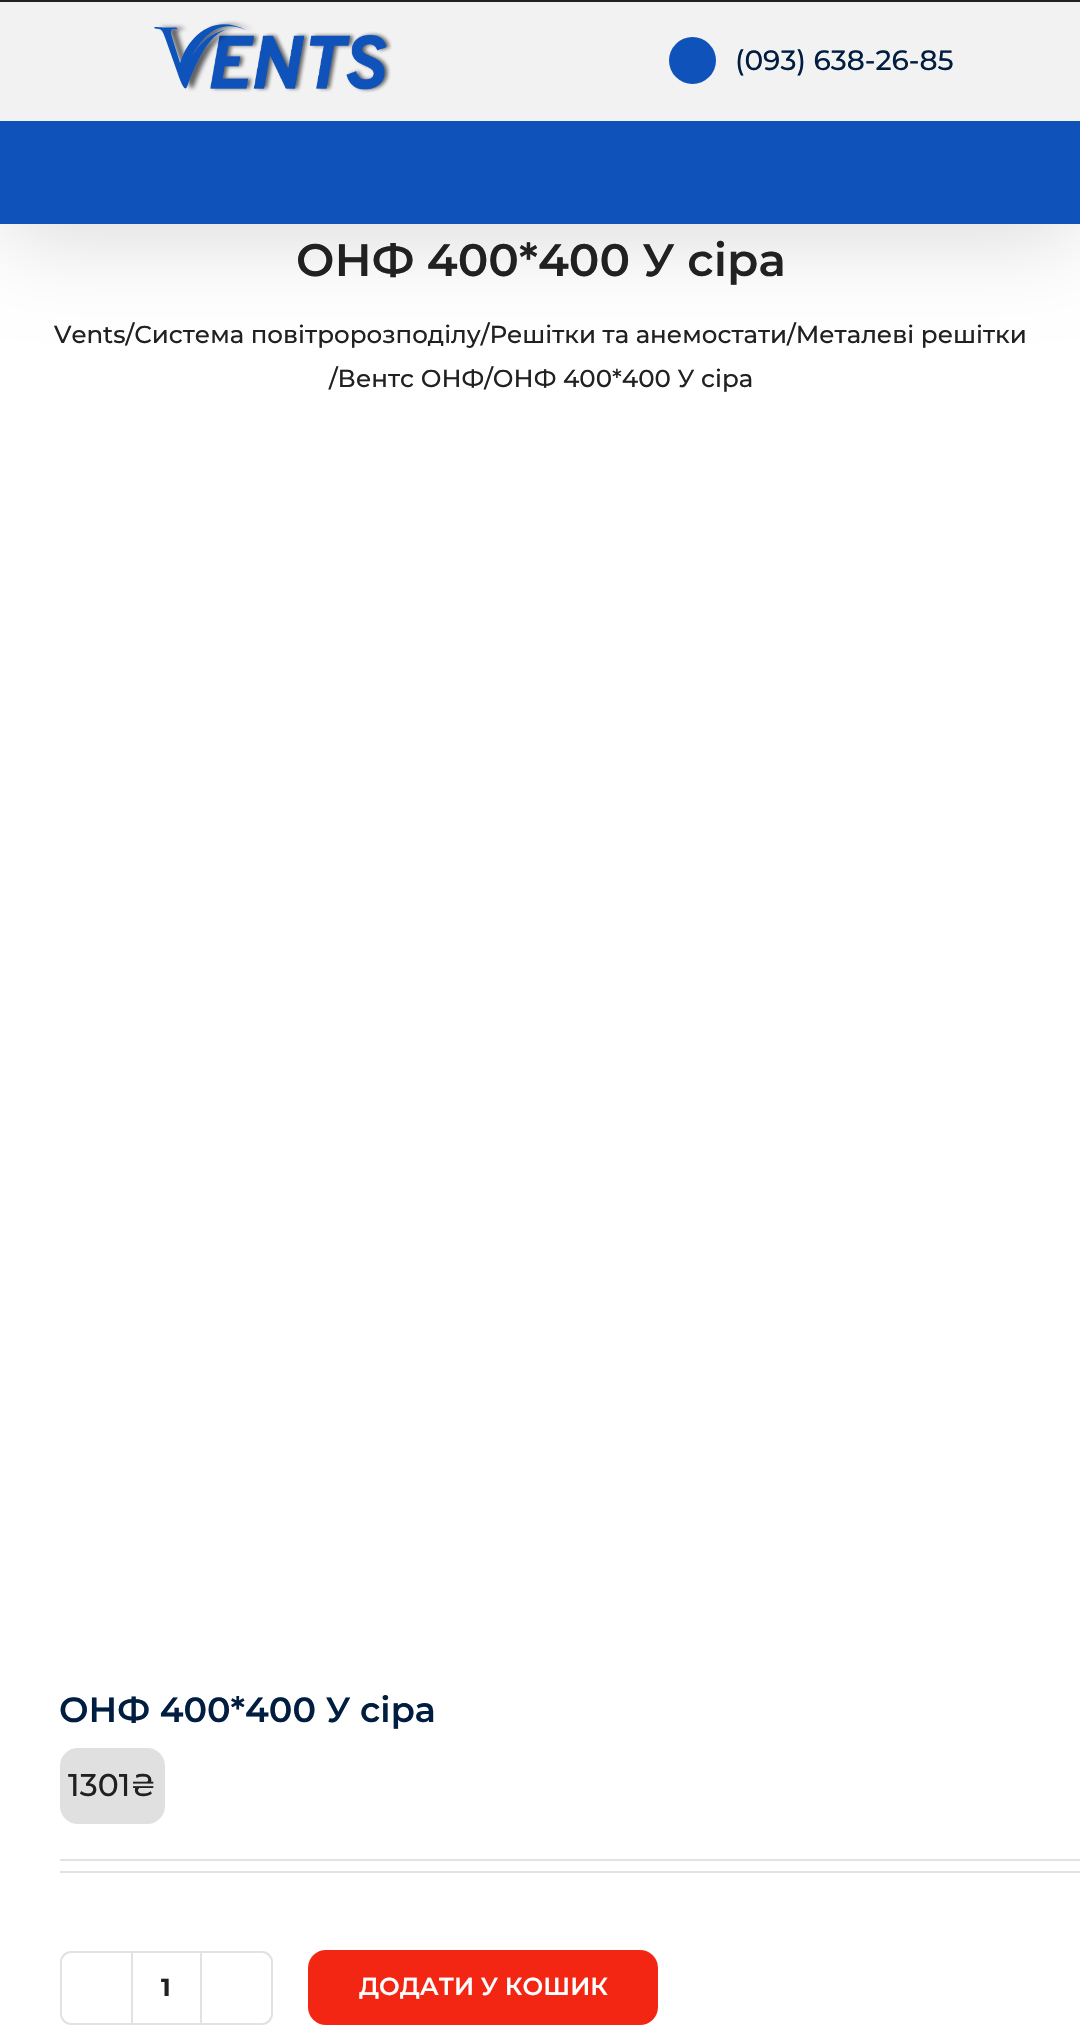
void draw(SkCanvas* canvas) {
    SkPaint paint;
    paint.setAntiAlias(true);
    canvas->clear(0xFFFFFFFF);
    paint.setColor(0x24000000);
    paint.setMaskFilter(SkMaskFilter::MakeBlur(kNormal_SkBlurStyle, 44));
    canvas->drawRect(SkRect::MakeXYWH(4, 21, 1074, 217), paint);
    paint.setMaskFilter(nullptr);
    paint.setColor(0xFF212121);
    canvas->drawRect(SkRect::MakeXYWH(0, 0, 1080, 2), paint);
    paint.setColor(0xFFF2F2F2);
    canvas->drawRect(SkRect::MakeXYWH(0, 2, 1080, 119), paint);
    canvas->drawImageRect(SkImages::DeferredFromEncodedData(SkData::MakeFromFileName("img1.png")), SkRect::MakeXYWH(154, 20, 238, 73), SkSamplingOptions());
    paint.setColor(0xFF0F52BA);
    canvas->drawCircle(692.5f, 60.5f, 23.5f, paint);
    SkFont font1(fontMgr->matchFamilyStyle("Montserrat", SkFontStyle(500, SkFontStyle::kNormal_Width, SkFontStyle::kUpright_Slant)), 28);
    font1.setSubpixel(true);
    paint.setColor(0xFF011E41);
    canvas->drawString("(093) 638-26-85", 735, 70, font1, paint);
    paint.setColor(0xFF0F52BA);
    canvas->drawRect(SkRect::MakeXYWH(0, 121, 1080, 103), paint);
    SkFont font2(fontMgr->matchFamilyStyle("Montserrat", SkFontStyle(600, SkFontStyle::kNormal_Width, SkFontStyle::kUpright_Slant)), 45.5f);
    font2.setSubpixel(true);
    paint.setColor(0xFF212121);
    canvas->drawString("ОНФ 400*400 У сіра", 296, 276, font2, paint);
    SkFont font3(fontMgr->matchFamilyStyle("Montserrat", SkFontStyle(500, SkFontStyle::kNormal_Width, SkFontStyle::kUpright_Slant)), 24.5f);
    font3.setSubpixel(true);
    canvas->drawString("Vents/Система повітророзподілу/Решітки та анемостати/Металеві решітки", 54, 343, font3, paint);
    canvas->drawString("/Вентс ОНФ/ОНФ 400*400 У сіра", 329, 387, font3, paint);
    SkFont font4(fontMgr->matchFamilyStyle("Montserrat", SkFontStyle(600, SkFontStyle::kNormal_Width, SkFontStyle::kUpright_Slant)), 35);
    font4.setSubpixel(true);
    paint.setColor(0xFF011E41);
    canvas->drawString("ОНФ 400*400 У сіра", 59, 1722, font4, paint);
    paint.setColor(0xFFE0E0E0);
    canvas->drawRoundRect(SkRect::MakeXYWH(60, 1748, 105, 76), 18, 18, paint);
    SkFont font5(fontMgr->matchFamilyStyle("Montserrat", SkFontStyle(500, SkFontStyle::kNormal_Width, SkFontStyle::kUpright_Slant)), 31.5f);
    font5.setSubpixel(true);
    paint.setColor(0xFF212121);
    canvas->drawString("1301₴", 68, 1796, font5, paint);
    paint.setColor(0xFFE2E2E2);
    canvas->drawRect(SkRect::MakeXYWH(60, 1859, 1020, 2), paint);
    canvas->drawRect(SkRect::MakeXYWH(60, 1871, 1020, 2), paint);
    paint.setStyle(SkPaint::kStroke_Style);
    paint.setStrokeWidth(2);
    canvas->drawRoundRect(SkRect::MakeXYWH(61, 1952, 211, 72), 10, 10, paint);
    paint.setStyle(SkPaint::kFill_Style);
    canvas->drawRect(SkRect::MakeXYWH(200, 1953, 2, 70), paint);
    canvas->drawRect(SkRect::MakeXYWH(131, 1953, 2, 70), paint);
    SkFont font6(fontMgr->matchFamilyStyle("Montserrat", SkFontStyle::Bold()), 24.5f);
    font6.setSubpixel(true);
    paint.setColor(0xFF212121);
    canvas->drawString("1", 161, 1996, font6, paint);
    paint.setColor(0xFFF22613);
    canvas->drawRoundRect(SkRect::MakeXYWH(308, 1950, 350, 75), 18, 18, paint);
    SkFont font7(fontMgr->matchFamilyStyle("Montserrat", SkFontStyle(600, SkFontStyle::kNormal_Width, SkFontStyle::kUpright_Slant)), 24.5f);
    font7.setSubpixel(true);
    paint.setColor(0xFFFFFFFF);
    canvas->drawString("ДОДАТИ У КОШИК", 359, 1995, font7, paint);
}
